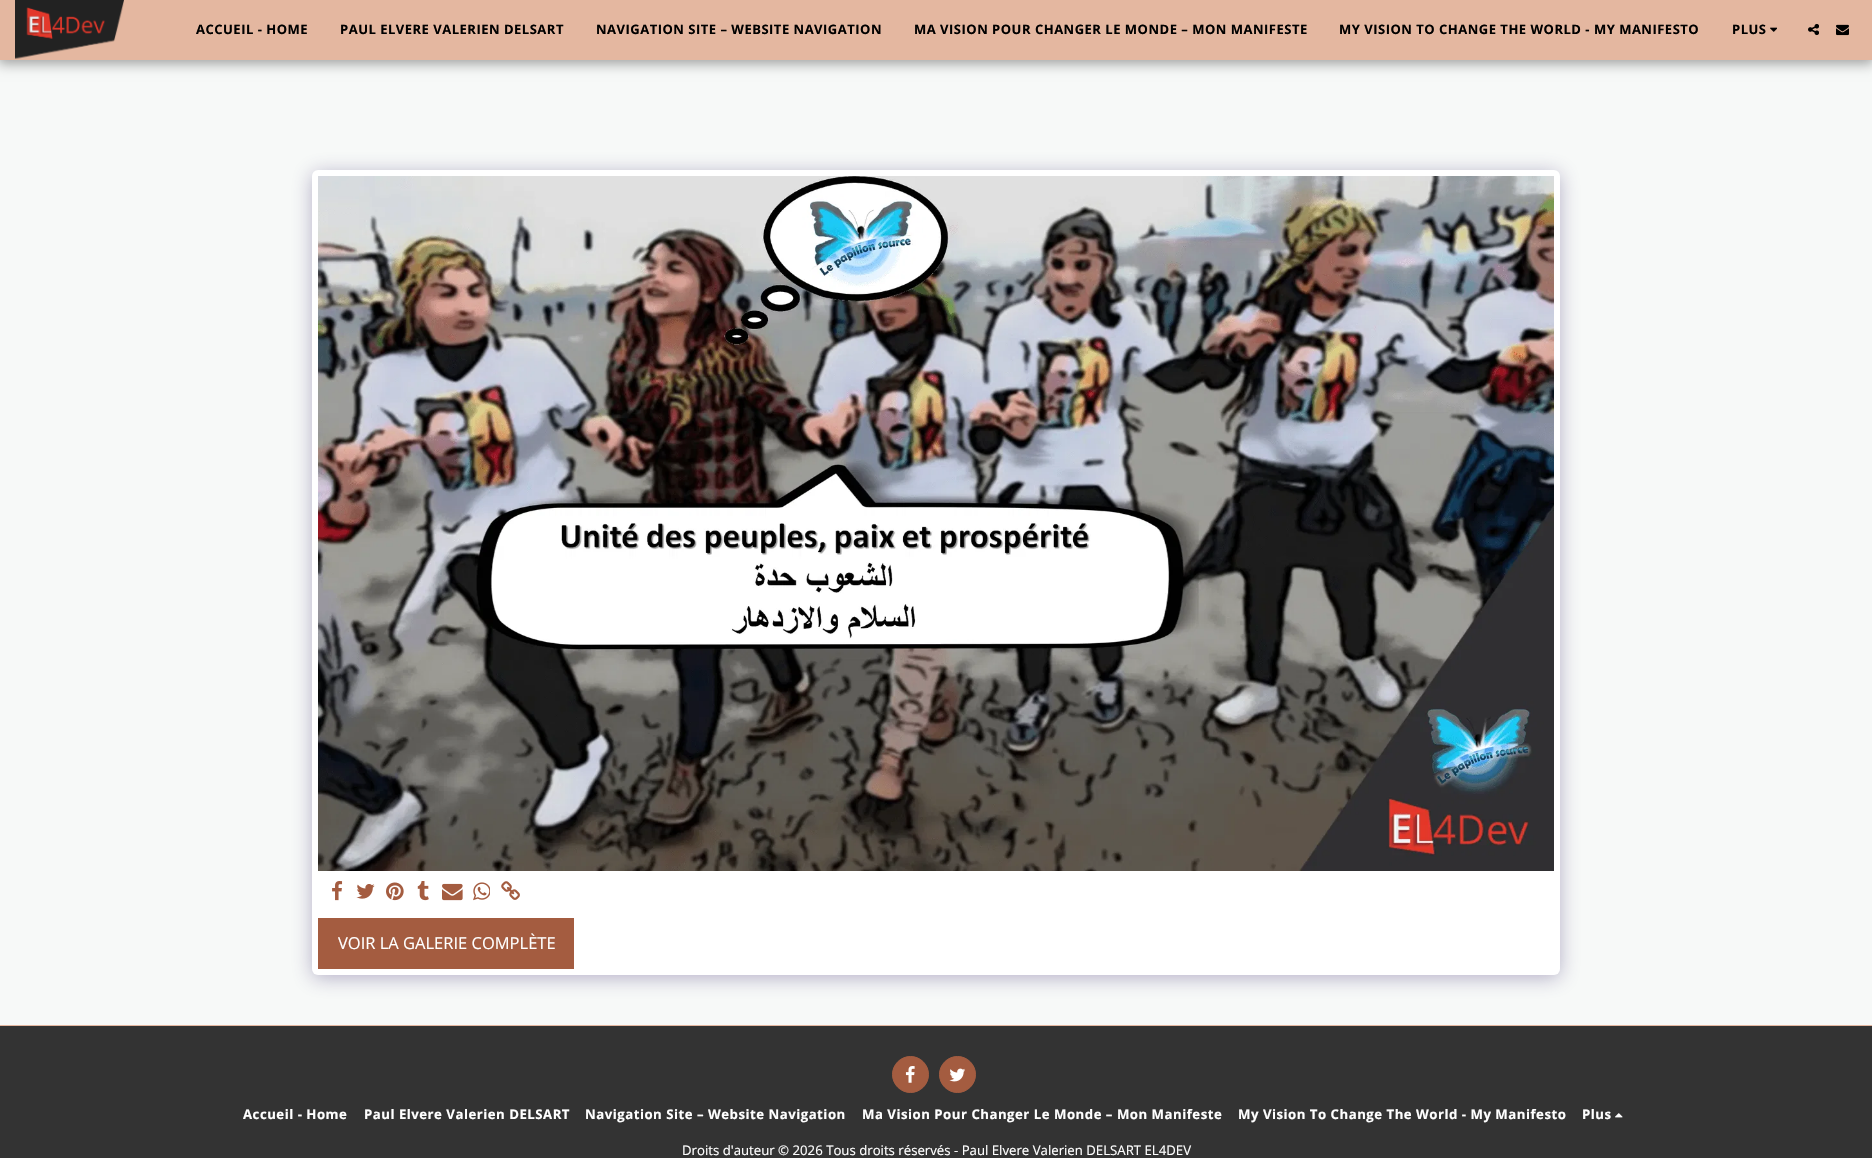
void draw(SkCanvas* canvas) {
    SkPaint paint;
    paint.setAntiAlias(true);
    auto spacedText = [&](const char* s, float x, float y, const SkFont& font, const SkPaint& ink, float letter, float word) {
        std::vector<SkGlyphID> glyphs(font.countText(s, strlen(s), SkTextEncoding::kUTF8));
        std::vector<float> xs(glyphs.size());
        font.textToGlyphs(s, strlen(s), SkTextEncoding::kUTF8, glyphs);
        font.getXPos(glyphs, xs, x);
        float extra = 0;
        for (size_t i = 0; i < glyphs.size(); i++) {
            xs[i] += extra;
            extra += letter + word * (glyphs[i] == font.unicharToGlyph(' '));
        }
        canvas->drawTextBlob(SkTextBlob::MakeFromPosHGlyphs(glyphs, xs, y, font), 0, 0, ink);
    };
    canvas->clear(0xFFF7F9F8);
    paint.setColor(0x59000000);
    paint.setMaskFilter(SkMaskFilter::MakeBlur(kNormal_SkBlurStyle, 6));
    canvas->drawRect(SkRect::MakeXYWH(-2, 0, 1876, 64), paint);
    paint.setMaskFilter(nullptr);
    paint.setColor(0xFFE4B7A0);
    canvas->drawRect(SkRect::MakeXYWH(0, 0, 1872, 60), paint);
    canvas->drawImageRect(SkImages::DeferredFromEncodedData(SkData::MakeFromFileName("img1.png")), SkRect::MakeXYWH(15, 0, 109, 59), SkSamplingOptions());
    SkFont font1(fontMgr->matchFamilyStyle("Open Sans", SkFontStyle::Bold()), 13);
    font1.setSubpixel(true);
    paint.setColor(0xFF000000);
    spacedText("ACCUEIL - HOME", 196, 34, font1, paint, 0.5f, 0);
    spacedText("PAUL ELVERE VALERIEN DELSART", 340, 34, font1, paint, 0.5f, 0);
    spacedText("NAVIGATION SITE – WEBSITE NAVIGATION", 596, 34, font1, paint, 0.5f, 0);
    spacedText("MA VISION POUR CHANGER LE MONDE – MON MANIFESTE", 914, 34, font1, paint, 0.5f, 0);
    spacedText("MY VISION TO CHANGE THE WORLD - MY MANIFESTO", 1339, 34, font1, paint, 0.5f, 0);
    spacedText("PLUS", 1732, 34, font1, paint, 0.5f, 0);
    canvas->drawImageRect(SkImages::DeferredFromEncodedData(SkData::MakeFromFileName("img2.png")), SkRect::MakeXYWH(1770, 27, 7, 5), SkSamplingOptions());
    canvas->drawImageRect(SkImages::DeferredFromEncodedData(SkData::MakeFromFileName("img3.png")), SkRect::MakeXYWH(1808, 23, 11, 13), SkSamplingOptions());
    canvas->drawImageRect(SkImages::DeferredFromEncodedData(SkData::MakeFromFileName("img4.png")), SkRect::MakeXYWH(1836, 24, 13, 12), SkSamplingOptions());
    paint.setColor(0x664D3F7A);
    paint.setMaskFilter(SkMaskFilter::MakeBlur(kNormal_SkBlurStyle, 10));
    canvas->drawRoundRect(SkRect::MakeXYWH(312, 173, 1248, 805), 6, 6, paint);
    paint.setMaskFilter(nullptr);
    paint.setColor(0xFFFFFFFF);
    canvas->drawRoundRect(SkRect::MakeXYWH(312, 170, 1248, 805), 6, 6, paint);
    canvas->drawImageRect(SkImages::DeferredFromEncodedData(SkData::MakeFromFileName("img5.png")), SkRect::MakeXYWH(318, 176, 1236, 695), SkSamplingOptions());
    canvas->drawImageRect(SkImages::DeferredFromEncodedData(SkData::MakeFromFileName("img6.png")), SkRect::MakeXYWH(332, 881, 11, 20), SkSamplingOptions());
    canvas->drawImageRect(SkImages::DeferredFromEncodedData(SkData::MakeFromFileName("img7.png")), SkRect::MakeXYWH(356, 884, 19, 15), SkSamplingOptions());
    canvas->drawImageRect(SkImages::DeferredFromEncodedData(SkData::MakeFromFileName("img8.png")), SkRect::MakeXYWH(386, 882, 18, 19), SkSamplingOptions());
    canvas->drawImageRect(SkImages::DeferredFromEncodedData(SkData::MakeFromFileName("img9.png")), SkRect::MakeXYWH(417, 881, 12, 20), SkSamplingOptions());
    canvas->drawImageRect(SkImages::DeferredFromEncodedData(SkData::MakeFromFileName("img10.png")), SkRect::MakeXYWH(442, 883, 21, 18), SkSamplingOptions());
    canvas->drawImageRect(SkImages::DeferredFromEncodedData(SkData::MakeFromFileName("img11.png")), SkRect::MakeXYWH(473, 882, 17, 19), SkSamplingOptions());
    canvas->drawImageRect(SkImages::DeferredFromEncodedData(SkData::MakeFromFileName("img12.png")), SkRect::MakeXYWH(501, 881, 19, 19), SkSamplingOptions());
    paint.setColor(0xFFA45C40);
    canvas->drawRect(SkRect::MakeXYWH(318, 918, 256, 51), paint);
    SkFont font2(fontMgr->matchFamilyStyle("Open Sans", SkFontStyle::Normal()), 16.5f);
    font2.setSubpixel(true);
    paint.setColor(0xFFFFFFFF);
    canvas->drawString("VOIR LA GALERIE COMPLÈTE", 338, 949, font2, paint);
    paint.setColor(0xFFE4B7A0);
    canvas->drawRect(SkRect::MakeXYWH(0, 1025, 1872, 1), paint);
    paint.setColor(0xFF333333);
    canvas->drawRect(SkRect::MakeXYWH(0, 1026, 1872, 132), paint);
    paint.setColor(0xFFA45C40);
    canvas->drawCircle(910.5f, 1074.5f, 18, paint);
    paint.setStyle(SkPaint::kStroke_Style);
    paint.setStrokeWidth(1);
    canvas->drawCircle(910.5f, 1074.5f, 18, paint);
    canvas->drawImageRect(SkImages::DeferredFromEncodedData(SkData::MakeFromFileName("img13.png")), SkRect::MakeXYWH(905, 1066, 10, 17), SkSamplingOptions());
    paint.setStyle(SkPaint::kFill_Style);
    canvas->drawCircle(957.5f, 1074.5f, 18, paint);
    paint.setStyle(SkPaint::kStroke_Style);
    canvas->drawCircle(957.5f, 1074.5f, 18, paint);
    canvas->drawImageRect(SkImages::DeferredFromEncodedData(SkData::MakeFromFileName("img14.png")), SkRect::MakeXYWH(949, 1068, 16, 14), SkSamplingOptions());
    SkFont font3(fontMgr->matchFamilyStyle("Open Sans", SkFontStyle::Bold()), 13.2f);
    font3.setSubpixel(true);
    paint.setStyle(SkPaint::kFill_Style);
    paint.setColor(0xFFFFFFFF);
    spacedText("Accueil - Home", 243, 1119, font3, paint, 0.5f, 0);
    spacedText("Paul Elvere Valerien DELSART", 364, 1119, font3, paint, 0.5f, 0);
    spacedText("Navigation Site – Website Navigation", 585, 1119, font3, paint, 0.5f, 0);
    spacedText("Ma Vision Pour Changer Le Monde – Mon Manifeste", 862, 1119, font3, paint, 0.5f, 0);
    spacedText("My Vision To Change The World - My Manifesto", 1238, 1119, font3, paint, 0.5f, 0);
    spacedText("Plus", 1582, 1119, font3, paint, 0.5f, 0);
    canvas->drawImageRect(SkImages::DeferredFromEncodedData(SkData::MakeFromFileName("img15.png")), SkRect::MakeXYWH(1615, 1113, 8, 5), SkSamplingOptions());
    SkFont font4(fontMgr->matchFamilyStyle("Open Sans", SkFontStyle::Normal()), 13.2f);
    font4.setSubpixel(true);
    canvas->drawString("Droits d'auteur © 2026 Tous droits réservés - Paul Elvere Valerien DELSART EL4DEV", 682, 1155, font4, paint);
}
